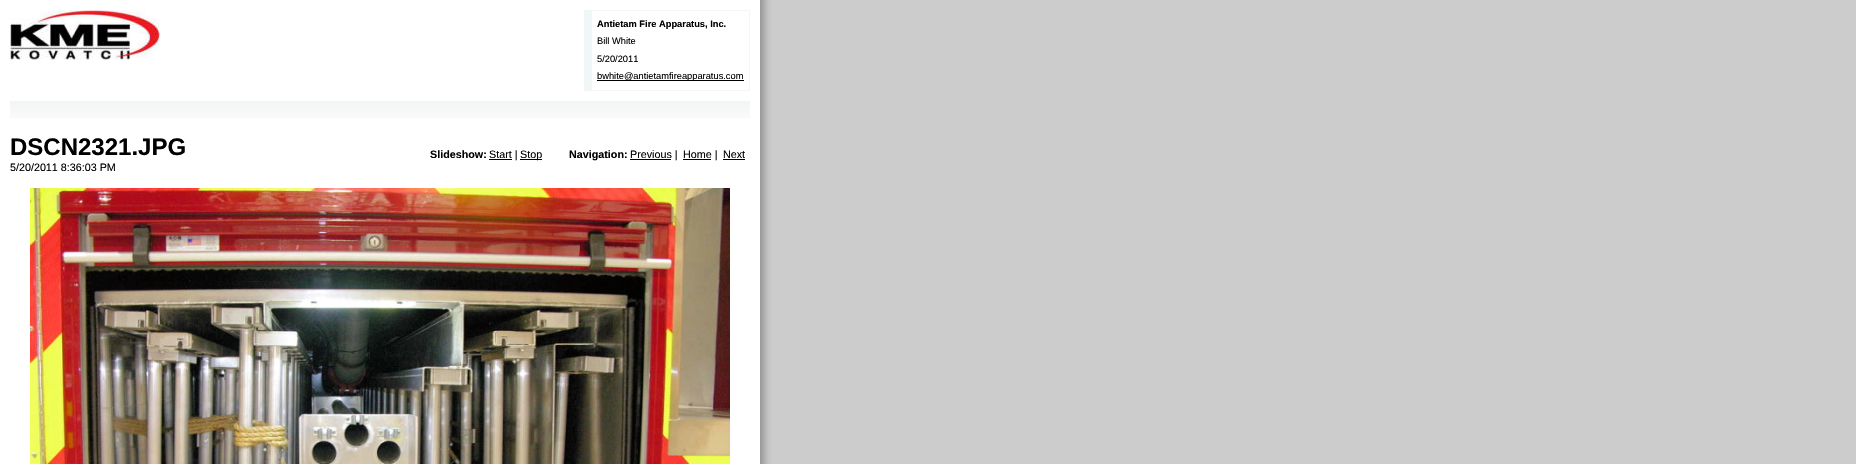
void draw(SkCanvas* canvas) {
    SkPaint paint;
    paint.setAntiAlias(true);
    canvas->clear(0xFFFFFFFF);
    canvas->drawImageRect(SkImages::DeferredFromEncodedData(SkData::MakeFromFileName("img1.png")), SkRect::MakeXYWH(760, 0, 1096, 464), SkSamplingOptions());
    canvas->drawImageRect(SkImages::DeferredFromEncodedData(SkData::MakeFromFileName("img2.png")), SkRect::MakeXYWH(10, 10, 150, 50), SkSamplingOptions());
    paint.setColor(0xFFF1F6F6);
    canvas->drawRect(SkRect::MakeXYWH(584, 10, 166, 1), paint);
    canvas->drawRect(SkRect::MakeXYWH(749, 10, 1, 81), paint);
    canvas->drawRect(SkRect::MakeXYWH(584, 90, 166, 1), paint);
    canvas->drawRect(SkRect::MakeXYWH(584, 10, 8, 81), paint);
    SkFont font1(fontMgr->matchFamilyStyle("Liberation Sans", SkFontStyle::Bold()), 9.3f);
    font1.setSubpixel(true);
    paint.setColor(0xFF000000);
    canvas->drawString("Antietam Fire Apparatus, Inc.", 597, 27, font1, paint);
    SkFont font2(fontMgr->matchFamilyStyle("Liberation Sans", SkFontStyle::Normal()), 9.3f);
    font2.setSubpixel(true);
    canvas->drawString("Bill White", 597, 44, font2, paint);
    canvas->drawString("5/20/2011", 597, 62, font2, paint);
    canvas->drawRect(SkRect::MakeXYWH(597, 80, 147, 1), paint);
    canvas->drawString("bwhite@antietamfireapparatus.com", 597, 79, font2, paint);
    canvas->drawImageRect(SkImages::DeferredFromEncodedData(SkData::MakeFromFileName("img3.png")), SkRect::MakeXYWH(10, 101, 740, 18), SkSamplingOptions());
    SkFont font3(fontMgr->matchFamilyStyle("Liberation Sans", SkFontStyle::Bold()), 24);
    font3.setSubpixel(true);
    canvas->drawString("DSCN2321.JPG", 10, 155, font3, paint);
    SkFont font4(fontMgr->matchFamilyStyle("Liberation Sans", SkFontStyle::Normal()), 10.75f);
    font4.setSubpixel(true);
    canvas->drawString("5/20/2011 8:36:03 PM", 10, 171, font4, paint);
    SkFont font5(fontMgr->matchFamilyStyle("Liberation Sans", SkFontStyle::Bold()), 10.75f);
    font5.setSubpixel(true);
    canvas->drawString("Slideshow:", 430, 158, font5, paint);
    canvas->drawRect(SkRect::MakeXYWH(489, 159, 23, 1), paint);
    canvas->drawString("Start |", 489, 158, font4, paint);
    canvas->drawRect(SkRect::MakeXYWH(520, 159, 22, 1), paint);
    canvas->drawString("Stop", 520, 158, font4, paint);
    canvas->drawString("Navigation:", 569, 158, font5, paint);
    canvas->drawRect(SkRect::MakeXYWH(630, 159, 41, 1), paint);
    canvas->drawString("Previous |", 630, 158, font4, paint);
    canvas->drawRect(SkRect::MakeXYWH(683, 159, 28, 1), paint);
    canvas->drawString("Home |", 683, 158, font4, paint);
    canvas->drawString("Next", 723, 158, font4, paint);
    canvas->drawRect(SkRect::MakeXYWH(723, 159, 22, 1), paint);
    canvas->drawImageRect(SkImages::DeferredFromEncodedData(SkData::MakeFromFileName("img4.png")), SkRect::MakeXYWH(30, 188, 700, 276), SkSamplingOptions());
}
